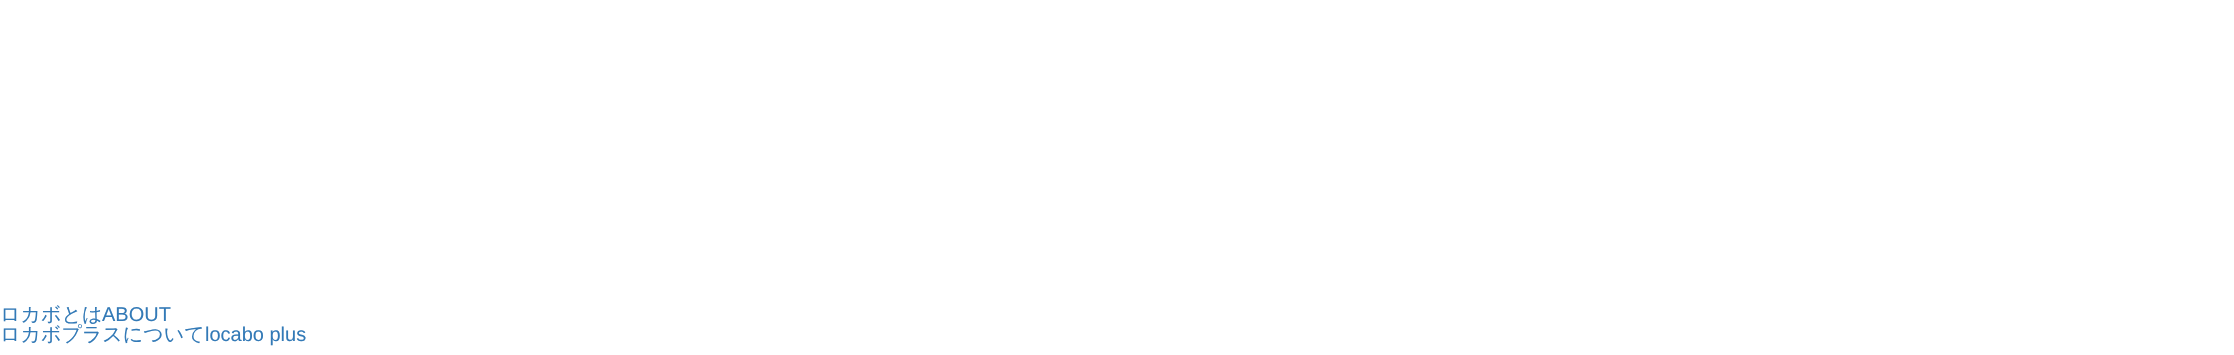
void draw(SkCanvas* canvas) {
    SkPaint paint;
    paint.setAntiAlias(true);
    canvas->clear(0xFFFFFFFF);
    SkFont font1(fontMgr->matchFamilyStyle("WenQuanYi Zen Hei", SkFontStyle(500, SkFontStyle::kNormal_Width, SkFontStyle::kUpright_Slant)), 20);
    font1.setSubpixel(true);
    paint.setColor(0xFF337AB7);
    canvas->drawString("ロカボとは", 0, 321, font1, paint);
    SkFont font2(fontMgr->matchFamilyStyle("Liberation Sans", SkFontStyle::Normal()), 20);
    font2.setSubpixel(true);
    canvas->drawString("ABOUT", 102, 321, font2, paint);
    canvas->drawString("ロカボプラスについて", 0, 341, font1, paint);
    canvas->drawString("locabo plus", 205, 341, font2, paint);
}
